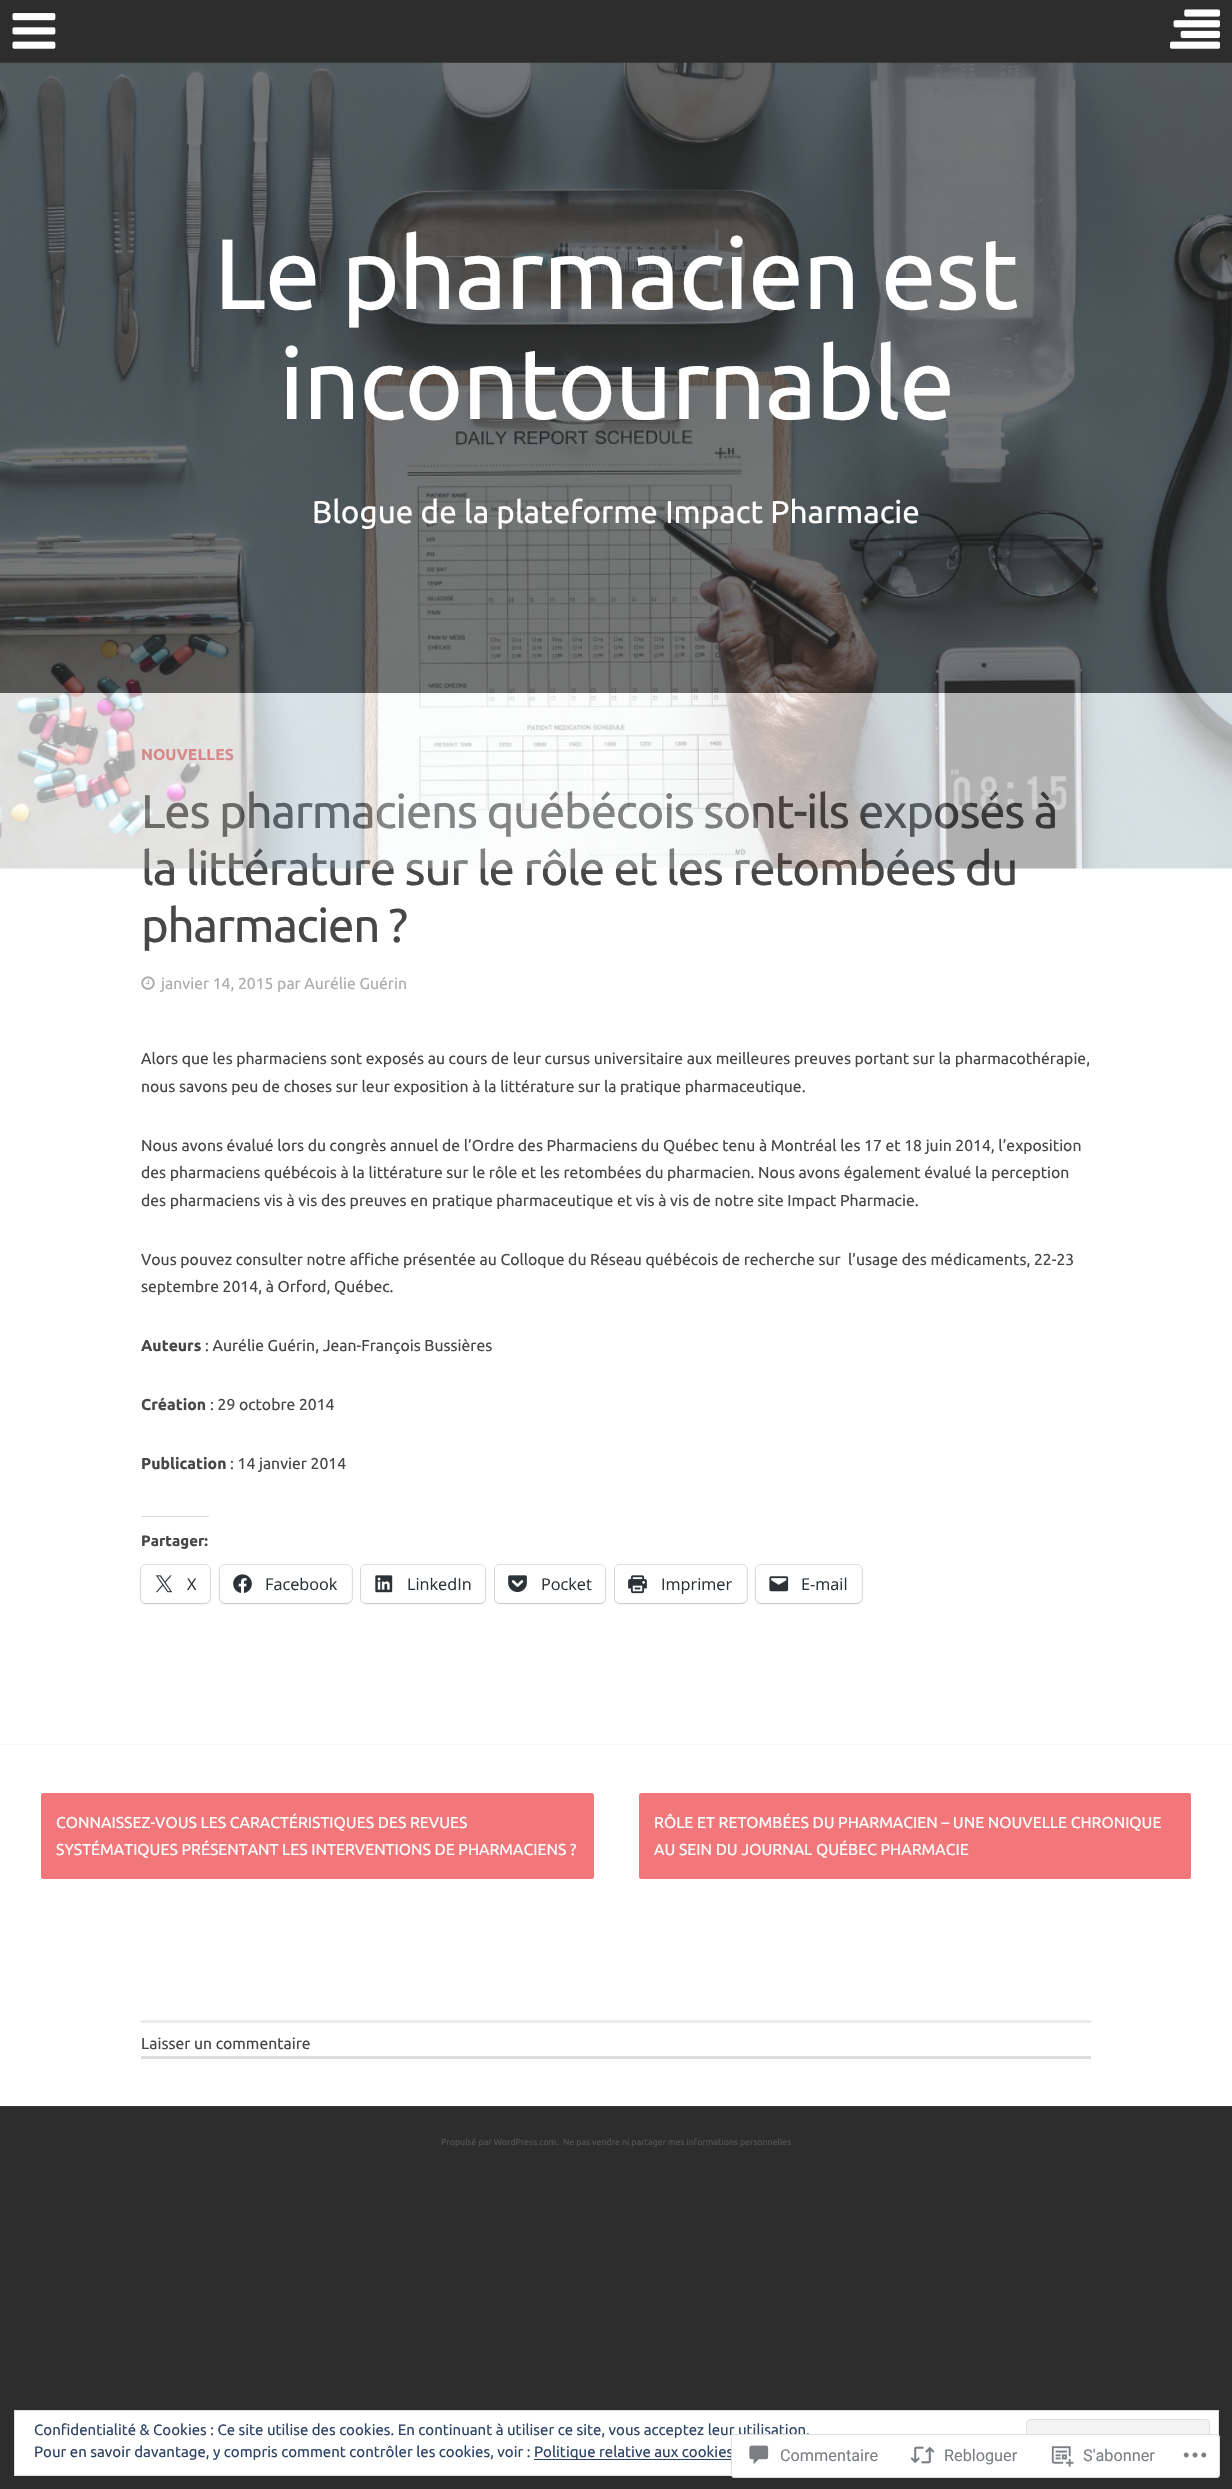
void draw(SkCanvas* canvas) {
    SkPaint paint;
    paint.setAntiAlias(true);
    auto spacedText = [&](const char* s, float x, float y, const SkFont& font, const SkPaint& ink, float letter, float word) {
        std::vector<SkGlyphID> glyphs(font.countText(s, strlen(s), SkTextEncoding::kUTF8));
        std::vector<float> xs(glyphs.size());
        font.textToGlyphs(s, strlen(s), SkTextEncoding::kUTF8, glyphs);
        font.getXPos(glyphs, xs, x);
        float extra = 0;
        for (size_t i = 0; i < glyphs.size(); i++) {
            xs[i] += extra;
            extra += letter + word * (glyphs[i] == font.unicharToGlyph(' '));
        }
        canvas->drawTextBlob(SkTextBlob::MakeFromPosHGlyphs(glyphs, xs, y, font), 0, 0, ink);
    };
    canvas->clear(0xFF2D2D2D);
    canvas->drawImageRect(SkImages::DeferredFromEncodedData(SkData::MakeFromFileName("img1.png")), SkRect::MakeXYWH(12, 13, 44, 36), SkSamplingOptions());
    canvas->drawImageRect(SkImages::DeferredFromEncodedData(SkData::MakeFromFileName("img2.png")), SkRect::MakeXYWH(1170, 9, 50, 40), SkSamplingOptions());
    paint.setColor(0xFFFFFFFF);
    canvas->drawRect(SkRect::MakeXYWH(0, 693, 1232, 1413), paint);
    SkFont font1(fontMgr->matchFamilyStyle("Ubuntu", SkFontStyle::Bold()), 15.75f);
    font1.setSubpixel(true);
    paint.setColor(0xFFF2777A);
    canvas->drawString("NOUVELLES", 141, 760, font1, paint);
    SkFont font2(fontMgr->matchFamilyStyle("Ubuntu", SkFontStyle::Normal()), 47.25f);
    font2.setSubpixel(true);
    paint.setColor(0xFF474747);
    spacedText("Les pharmaciens québécois sont-ils exposés à", 141, 828, font2, paint, -1.25f, 0);
    spacedText("la littérature sur le rôle et les retombées du", 141, 885, font2, paint, -1.25f, 0);
    canvas->drawImageRect(SkImages::DeferredFromEncodedData(SkData::MakeFromFileName("img3.png")), SkRect::MakeXYWH(0, 62, 1232, 807), SkSamplingOptions());
    SkFont font3(fontMgr->matchFamilyStyle("Ubuntu", SkFontStyle::Normal()), 100);
    font3.setSubpixel(true);
    paint.setColor(0xFFFFFFFF);
    spacedText("Le pharmacien est", 214, 309, font3, paint, -1.25f, 0);
    spacedText("incontournable", 279, 419, font3, paint, -1.25f, 0);
    SkFont font4(fontMgr->matchFamilyStyle("Ubuntu", SkFontStyle::Normal()), 31.5f);
    font4.setSubpixel(true);
    canvas->drawString("Blogue de la plateforme Impact Pharmacie", 312, 523, font4, paint);
    paint.setColor(0xFFF6F6F6);
    canvas->drawRect(SkRect::MakeXYWH(0, 1744, 1232, 1), paint);
    paint.setColor(0xFF474747);
    spacedText("pharmacien ?", 141, 942, font2, paint, -1.25f, 0);
    canvas->drawImageRect(SkImages::DeferredFromEncodedData(SkData::MakeFromFileName("img4.png")), SkRect::MakeXYWH(141, 976, 14, 14), SkSamplingOptions());
    SkFont font5(fontMgr->matchFamilyStyle("Ubuntu", SkFontStyle::Normal()), 15.75f);
    font5.setSubpixel(true);
    paint.setColor(0xFFADADAD);
    canvas->drawString("janvier 14, 2015 par Aurélie Guérin", 161, 989, font5, paint);
    paint.setColor(0xFF474747);
    canvas->drawString("Alors que les pharmaciens sont exposés au cours de leur cursus universitaire aux meilleures preuves portant sur la pharmacothérapie,", 141, 1064, font5, paint);
    canvas->drawString("nous savons peu de choses sur leur exposition à la littérature sur la pratique pharmaceutique.", 141, 1092, font5, paint);
    canvas->drawString("Nous avons évalué lors du congrès annuel de l’Ordre des Pharmaciens du Québec tenu à Montréal les 17 et 18 juin 2014, l’exposition", 141, 1151, font5, paint);
    canvas->drawString("des pharmaciens québécois à la littérature sur le rôle et les retombées du pharmacien. Nous avons également évalué la perception", 141, 1178, font5, paint);
    canvas->drawString("des pharmaciens vis à vis des preuves en pratique pharmaceutique et vis à vis de notre site Impact Pharmacie.", 141, 1206, font5, paint);
    canvas->drawString("Vous pouvez consulter notre affiche présentée au Colloque du Réseau québécois de recherche sur  l’usage des médicaments, 22-23", 141, 1265, font5, paint);
    canvas->drawString("septembre 2014, à Orford, Québec.", 141, 1292, font5, paint);
    canvas->drawString("Auteurs", 141, 1351, font1, paint);
    canvas->drawString(": Aurélie Guérin, Jean-François Bussières", 205, 1351, font5, paint);
    canvas->drawString("Création", 141, 1410, font1, paint);
    canvas->drawString(": 29 octobre 2014", 210, 1410, font5, paint);
    canvas->drawString("Publication", 141, 1469, font1, paint);
    canvas->drawString(": 14 janvier 2014", 230, 1469, font5, paint);
    paint.setColor(0xFFDCDCDE);
    canvas->drawRect(SkRect::MakeXYWH(141, 1516, 68, 1), paint);
    SkFont font6(fontMgr->matchFamilyStyle("Ubuntu", SkFontStyle::Bold()), 15);
    font6.setSubpixel(true);
    paint.setColor(0xFF474747);
    canvas->drawString("Partager:", 141, 1546, font6, paint);
    paint.setStyle(SkPaint::kStroke_Style);
    paint.setStrokeWidth(1);
    paint.setColor(0xFFE0E0E0);
    canvas->drawRoundRect(SkRect::MakeXYWH(140.5f, 1564.5f, 70, 39), 5.5f, 5.5f, paint);
    paint.setStyle(SkPaint::kFill_Style);
    paint.setColor(0x1F000000);
    paint.setMaskFilter(SkMaskFilter::MakeBlur(kNormal_SkBlurStyle, 1));
    canvas->drawRoundRect(SkRect::MakeXYWH(141, 1566, 69, 38), 5, 5, paint);
    paint.setMaskFilter(nullptr);
    paint.setColor(0xFFFFFFFF);
    canvas->drawRoundRect(SkRect::MakeXYWH(141, 1565, 69, 38), 5, 5, paint);
    canvas->drawImageRect(SkImages::DeferredFromEncodedData(SkData::MakeFromFileName("img5.png")), SkRect::MakeXYWH(155, 1575, 18, 18), SkSamplingOptions());
    SkFont font7(fontMgr->matchFamilyStyle("Open Sans", SkFontStyle::Normal()), 16.25f);
    font7.setSubpixel(true);
    paint.setColor(0xFF2C3338);
    canvas->drawString("X", 187, 1590, font7, paint);
    paint.setStyle(SkPaint::kStroke_Style);
    paint.setColor(0xFFE0E0E0);
    canvas->drawRoundRect(SkRect::MakeXYWH(219.5f, 1564.5f, 133, 39), 5.5f, 5.5f, paint);
    paint.setStyle(SkPaint::kFill_Style);
    paint.setColor(0x1F000000);
    paint.setMaskFilter(SkMaskFilter::MakeBlur(kNormal_SkBlurStyle, 1));
    canvas->drawRoundRect(SkRect::MakeXYWH(220, 1566, 131, 38), 5, 5, paint);
    paint.setMaskFilter(nullptr);
    paint.setColor(0xFFFFFFFF);
    canvas->drawRoundRect(SkRect::MakeXYWH(220, 1565, 131, 38), 5, 5, paint);
    canvas->drawImageRect(SkImages::DeferredFromEncodedData(SkData::MakeFromFileName("img6.png")), SkRect::MakeXYWH(233, 1574, 19, 19), SkSamplingOptions());
    paint.setColor(0xFF2C3338);
    canvas->drawString("Facebook", 265, 1590, font7, paint);
    paint.setStyle(SkPaint::kStroke_Style);
    paint.setColor(0xFFE0E0E0);
    canvas->drawRoundRect(SkRect::MakeXYWH(360.5f, 1564.5f, 125, 39), 5.5f, 5.5f, paint);
    paint.setStyle(SkPaint::kFill_Style);
    paint.setColor(0x1F000000);
    paint.setMaskFilter(SkMaskFilter::MakeBlur(kNormal_SkBlurStyle, 1));
    canvas->drawRoundRect(SkRect::MakeXYWH(361, 1566, 124, 38), 5, 5, paint);
    paint.setMaskFilter(nullptr);
    paint.setColor(0xFFFFFFFF);
    canvas->drawRoundRect(SkRect::MakeXYWH(361, 1565, 124, 38), 5, 5, paint);
    canvas->drawImageRect(SkImages::DeferredFromEncodedData(SkData::MakeFromFileName("img7.png")), SkRect::MakeXYWH(375, 1575, 18, 18), SkSamplingOptions());
    paint.setColor(0xFF2C3338);
    canvas->drawString("LinkedIn", 407, 1590, font7, paint);
    paint.setStyle(SkPaint::kStroke_Style);
    paint.setColor(0xFFE0E0E0);
    canvas->drawRoundRect(SkRect::MakeXYWH(494.5f, 1564.5f, 111, 39), 5.5f, 5.5f, paint);
    paint.setStyle(SkPaint::kFill_Style);
    paint.setColor(0x1F000000);
    paint.setMaskFilter(SkMaskFilter::MakeBlur(kNormal_SkBlurStyle, 1));
    canvas->drawRoundRect(SkRect::MakeXYWH(495, 1566, 110, 38), 5, 5, paint);
    paint.setMaskFilter(nullptr);
    paint.setColor(0xFFFFFFFF);
    canvas->drawRoundRect(SkRect::MakeXYWH(495, 1565, 110, 38), 5, 5, paint);
    canvas->drawImageRect(SkImages::DeferredFromEncodedData(SkData::MakeFromFileName("img8.png")), SkRect::MakeXYWH(508, 1575, 19, 17), SkSamplingOptions());
    paint.setColor(0xFF2C3338);
    canvas->drawString("Pocket", 541, 1590, font7, paint);
    paint.setStyle(SkPaint::kStroke_Style);
    paint.setColor(0xFFE0E0E0);
    canvas->drawRoundRect(SkRect::MakeXYWH(614.5f, 1564.5f, 133, 39), 5.5f, 5.5f, paint);
    paint.setStyle(SkPaint::kFill_Style);
    paint.setColor(0x1F000000);
    paint.setMaskFilter(SkMaskFilter::MakeBlur(kNormal_SkBlurStyle, 1));
    canvas->drawRoundRect(SkRect::MakeXYWH(615, 1566, 131, 38), 5, 5, paint);
    paint.setMaskFilter(nullptr);
    paint.setColor(0xFFFFFFFF);
    canvas->drawRoundRect(SkRect::MakeXYWH(615, 1565, 131, 38), 5, 5, paint);
    canvas->drawImageRect(SkImages::DeferredFromEncodedData(SkData::MakeFromFileName("img9.png")), SkRect::MakeXYWH(628, 1575, 19, 19), SkSamplingOptions());
    paint.setColor(0xFF2C3338);
    canvas->drawString("Imprimer", 661, 1590, font7, paint);
    paint.setStyle(SkPaint::kStroke_Style);
    paint.setColor(0xFFE0E0E0);
    canvas->drawRoundRect(SkRect::MakeXYWH(755.5f, 1564.5f, 107, 39), 5.5f, 5.5f, paint);
    paint.setStyle(SkPaint::kFill_Style);
    paint.setColor(0x1F000000);
    paint.setMaskFilter(SkMaskFilter::MakeBlur(kNormal_SkBlurStyle, 1));
    canvas->drawRoundRect(SkRect::MakeXYWH(756, 1566, 105, 38), 5, 5, paint);
    paint.setMaskFilter(nullptr);
    paint.setColor(0xFFFFFFFF);
    canvas->drawRoundRect(SkRect::MakeXYWH(756, 1565, 105, 38), 5, 5, paint);
    canvas->drawImageRect(SkImages::DeferredFromEncodedData(SkData::MakeFromFileName("img10.png")), SkRect::MakeXYWH(769, 1576, 20, 16), SkSamplingOptions());
    paint.setColor(0xFF2C3338);
    canvas->drawString("E-mail", 801, 1590, font7, paint);
    paint.setColor(0xFFF2777A);
    canvas->drawRoundRect(SkRect::MakeXYWH(41, 1793, 553, 86), 2.5f, 2.5f, paint);
    paint.setColor(0xFFFFFFFF);
    canvas->drawString("CONNAISSEZ-VOUS LES CARACTÉRISTIQUES DES REVUES", 56, 1828, font5, paint);
    canvas->drawString("SYSTÉMATIQUES PRÉSENTANT LES INTERVENTIONS DE PHARMACIENS ?", 56, 1855, font5, paint);
    paint.setColor(0xFFF2777A);
    canvas->drawRoundRect(SkRect::MakeXYWH(639, 1793, 552, 86), 2.5f, 2.5f, paint);
    paint.setColor(0xFFFFFFFF);
    canvas->drawString("RÔLE ET RETOMBÉES DU PHARMACIEN – UNE NOUVELLE CHRONIQUE", 654, 1828, font5, paint);
    canvas->drawString("AU SEIN DU JOURNAL QUÉBEC PHARMACIE", 654, 1855, font5, paint);
    paint.setColor(0xFFECECEC);
    canvas->drawRect(SkRect::MakeXYWH(141, 2020, 950, 3), paint);
    paint.setColor(0xFF474747);
    canvas->drawString("Laisser un commentaire", 141, 2049, font5, paint);
    paint.setColor(0xFFDCDCDE);
    canvas->drawRect(SkRect::MakeXYWH(141, 2056, 950, 3), paint);
    paint.setColor(0xFF3A3A3A);
    canvas->drawRect(SkRect::MakeXYWH(0, 2106, 1232, 1), paint);
    SkFont font8(fontMgr->matchFamilyStyle("Ubuntu", SkFontStyle::Normal()), 8.8f);
    font8.setSubpixel(true);
    paint.setColor(0xFF535353);
    canvas->drawString("Propulsé par WordPress.com.", 441, 2145, font8, paint);
    canvas->drawString("Ne pas vendre ni partager mes informations personnelles", 563, 2145, font8, paint);
    paint.setColor(0xFFFFFFFF);
    canvas->drawRect(SkRect::MakeXYWH(14.5f, 2410.5f, 1204, 65), paint);
    paint.setStyle(SkPaint::kStroke_Style);
    paint.setColor(0xFFDEDEDE);
    canvas->drawRect(SkRect::MakeXYWH(14.5f, 2410.5f, 1204, 65), paint);
    SkFont font9(fontMgr->matchFamilyStyle("Ubuntu", SkFontStyle::Normal()), 15);
    font9.setSubpixel(true);
    paint.setStyle(SkPaint::kFill_Style);
    paint.setColor(0xFF2E4467);
    canvas->drawString("Confidentialité & Cookies : Ce site utilise des cookies. En continuant à utiliser ce site, vous acceptez leur utilisation.", 34, 2435, font9, paint);
    paint.setColor(0xFFF3F3F3);
    canvas->drawRoundRect(SkRect::MakeXYWH(1026.5f, 2419.5f, 183, 48), 3.5f, 3.5f, paint);
    paint.setStyle(SkPaint::kStroke_Style);
    paint.setColor(0xFFDEDEDE);
    canvas->drawRoundRect(SkRect::MakeXYWH(1026.5f, 2419.5f, 183, 48), 3.5f, 3.5f, paint);
    paint.setStyle(SkPaint::kFill_Style);
    paint.setColor(0xFF2E4467);
    canvas->drawString("Pour en savoir davantage, y compris comment contrôler les cookies, voir :", 34, 2457, font9, paint);
    canvas->drawRect(SkRect::MakeXYWH(534, 2459, 200, 1), paint);
    canvas->drawString("Politique relative aux cookies", 534, 2457, font9, paint);
    paint.setColor(0xFAFFFFFF);
    canvas->drawRoundRect(SkRect::MakeXYWH(731, 2434, 489, 44), 4, 4, paint);
    paint.setStyle(SkPaint::kStroke_Style);
    paint.setColor(0xFADCDCDE);
    canvas->drawRoundRect(SkRect::MakeXYWH(731.5f, 2434.5f, 488, 43), 3.5f, 3.5f, paint);
    canvas->drawImageRect(SkImages::DeferredFromEncodedData(SkData::MakeFromFileName("img11.png")), SkRect::MakeXYWH(749, 2445, 20, 20), SkSamplingOptions());
    SkFont font10(fontMgr->matchFamilyStyle("Roboto", SkFontStyle::Normal()), 16.25f);
    font10.setSubpixel(true);
    paint.setStyle(SkPaint::kFill_Style);
    paint.setColor(0xFF7B7F85);
    canvas->drawString("Commentaire", 780, 2461, font10, paint);
    canvas->drawImageRect(SkImages::DeferredFromEncodedData(SkData::MakeFromFileName("img12.png")), SkRect::MakeXYWH(910, 2446, 25, 18), SkSamplingOptions());
    canvas->drawString("Rebloguer", 944, 2461, font10, paint);
    canvas->drawImageRect(SkImages::DeferredFromEncodedData(SkData::MakeFromFileName("img13.png")), SkRect::MakeXYWH(1051, 2446, 23, 21), SkSamplingOptions());
    canvas->drawString("S'abonner", 1083, 2461, font10, paint);
    canvas->drawImageRect(SkImages::DeferredFromEncodedData(SkData::MakeFromFileName("img14.png")), SkRect::MakeXYWH(1183, 2452, 24, 6), SkSamplingOptions());
}
